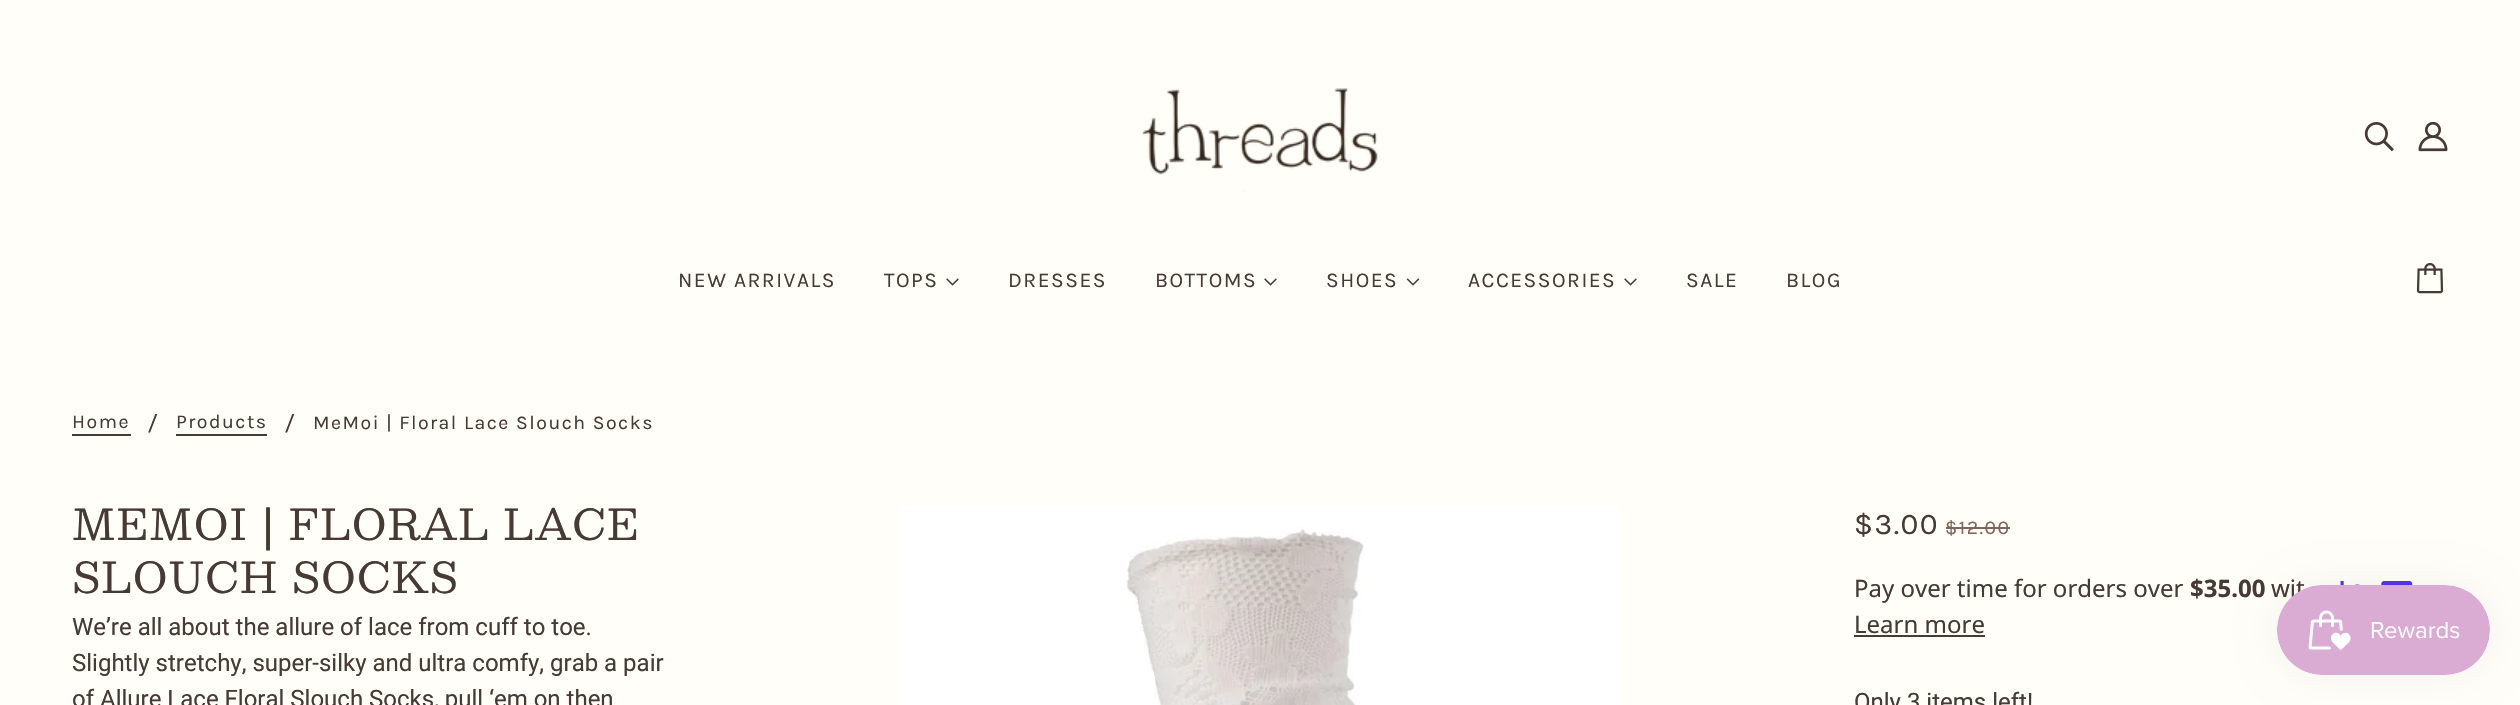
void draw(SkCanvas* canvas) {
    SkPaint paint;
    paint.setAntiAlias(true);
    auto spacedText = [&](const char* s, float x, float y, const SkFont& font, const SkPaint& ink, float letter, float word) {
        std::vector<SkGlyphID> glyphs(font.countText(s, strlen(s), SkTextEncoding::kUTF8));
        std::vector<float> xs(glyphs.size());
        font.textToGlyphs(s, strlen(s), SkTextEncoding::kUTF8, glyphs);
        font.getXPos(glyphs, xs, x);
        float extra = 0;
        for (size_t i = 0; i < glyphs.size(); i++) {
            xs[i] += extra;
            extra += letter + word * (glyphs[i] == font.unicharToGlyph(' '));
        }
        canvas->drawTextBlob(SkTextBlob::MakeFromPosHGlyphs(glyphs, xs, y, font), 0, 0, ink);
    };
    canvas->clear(0xFFFFFEF9);
    canvas->drawImageRect(SkImages::DeferredFromEncodedData(SkData::MakeFromFileName("img1.png")), SkRect::MakeXYWH(1142, 88, 236, 104), SkSamplingOptions());
    canvas->drawImageRect(SkImages::DeferredFromEncodedData(SkData::MakeFromFileName("img2.png")), SkRect::MakeXYWH(2364, 122, 30, 30), SkSamplingOptions());
    canvas->drawImageRect(SkImages::DeferredFromEncodedData(SkData::MakeFromFileName("img3.png")), SkRect::MakeXYWH(2418, 122, 30, 30), SkSamplingOptions());
    SkFont font1(fontMgr->matchFamilyStyle("Karla", SkFontStyle::Normal()), 21);
    font1.setSubpixel(true);
    paint.setColor(0xFF473933);
    spacedText("NEW ARRIVALS", 678, 287, font1, paint, 1.5f, 0);
    spacedText("TOPS", 884, 287, font1, paint, 1.5f, 0);
    canvas->drawImageRect(SkImages::DeferredFromEncodedData(SkData::MakeFromFileName("img4.png")), SkRect::MakeXYWH(946, 278, 13, 8), SkSamplingOptions());
    spacedText("DRESSES", 1008, 287, font1, paint, 1.5f, 0);
    spacedText("BOTTOMS", 1155, 287, font1, paint, 1.5f, 0);
    canvas->drawImageRect(SkImages::DeferredFromEncodedData(SkData::MakeFromFileName("img4.png")), SkRect::MakeXYWH(1264, 278, 13, 8), SkSamplingOptions());
    spacedText("SHOES", 1326, 287, font1, paint, 1.5f, 0);
    canvas->drawImageRect(SkImages::DeferredFromEncodedData(SkData::MakeFromFileName("img5.png")), SkRect::MakeXYWH(1406, 278, 14, 8), SkSamplingOptions());
    spacedText("ACCESSORIES", 1468, 287, font1, paint, 1.5f, 0);
    canvas->drawImageRect(SkImages::DeferredFromEncodedData(SkData::MakeFromFileName("img4.png")), SkRect::MakeXYWH(1624, 278, 13, 8), SkSamplingOptions());
    spacedText("SALE", 1686, 287, font1, paint, 1.5f, 0);
    spacedText("BLOG", 1786, 287, font1, paint, 1.5f, 0);
    canvas->drawImageRect(SkImages::DeferredFromEncodedData(SkData::MakeFromFileName("img6.png")), SkRect::MakeXYWH(2417, 263, 27, 31), SkSamplingOptions());
    SkFont font2(fontMgr->matchFamilyStyle("Karla", SkFontStyle::Normal()), 19.5f);
    font2.setSubpixel(true);
    spacedText("Home", 72, 428, font2, paint, 1.5f, 0);
    canvas->drawRect(SkRect::MakeXYWH(72, 434, 59, 2), paint);
    SkFont font3(fontMgr->matchFamilyStyle("Roboto", SkFontStyle::Normal()), 24);
    font3.setSubpixel(true);
    canvas->drawString("/", 148, 431, font3, paint);
    spacedText("Products", 176, 428, font2, paint, 1.5f, 0);
    canvas->drawRect(SkRect::MakeXYWH(176, 434, 91, 2), paint);
    canvas->drawString("/", 285, 431, font3, paint);
    spacedText("MeMoi | Floral Lace Slouch Socks", 313, 429, font2, paint, 1.5f, 0);
    SkFont font4(fontMgr->matchFamilyStyle("Besley", SkFontStyle::Normal()), 42);
    font4.setSubpixel(true);
    spacedText("MEMOI | FLORAL LACE", 72, 540, font4, paint, 1, 0);
    spacedText("SLOUCH SOCKS", 72, 593, font4, paint, 1, 0);
    canvas->drawImageRect(SkImages::DeferredFromEncodedData(SkData::MakeFromFileName("img7.png")), SkRect::MakeXYWH(900, 507, 720, 198), SkSamplingOptions());
    SkFont font5(fontMgr->matchFamilyStyle("Karla", SkFontStyle::Normal()), 30);
    font5.setSubpixel(true);
    spacedText("$3.00", 1854, 534, font5, paint, 1.5f, 0);
    paint.setColor(0xFF7F665C);
    spacedText("$12.00", 1945, 534, font2, paint, 1.5f, 0);
    canvas->drawRect(SkRect::MakeXYWH(1946, 527, 64, 2), paint);
    SkFont font6(fontMgr->matchFamilyStyle("Noto Sans", SkFontStyle::Normal()), 24);
    font6.setSubpixel(true);
    paint.setColor(0xFF473933);
    canvas->drawString("Pay over time for orders over", 1854, 597, font6, paint);
    SkFont font7(fontMgr->matchFamilyStyle("Noto Sans", SkFontStyle::Bold()), 24);
    font7.setSubpixel(true);
    canvas->drawString("$35.00", 2190, 597, font7, paint);
    canvas->drawString("wit", 2271, 597, font6, paint);
    canvas->drawImageRect(SkImages::DeferredFromEncodedData(SkData::MakeFromFileName("img8.png")), SkRect::MakeXYWH(2340, 581, 73, 4), SkSamplingOptions());
    canvas->drawString("Learn more", 1854, 633, font6, paint);
    canvas->drawRect(SkRect::MakeXYWH(1854, 635, 131, 2), paint);
    canvas->drawString("Only 3 items left!", 1854, 710, font3, paint);
    canvas->drawString("We’re all about the allure of lace from cuff to toe.", 72, 635, font3, paint);
    canvas->drawString("Slightly stretchy, super-silky and ultra comfy, grab a pair", 72, 671, font3, paint);
    canvas->drawString("of Allure Lace Floral Slouch Socks, pull ‘em on then", 72, 707, font3, paint);
    paint.setColor(0x0D000000);
    paint.setMaskFilter(SkMaskFilter::MakeBlur(kNormal_SkBlurStyle, 19));
    canvas->drawRoundRect(SkRect::MakeXYWH(2277, 585, 213, 90), 45, 45, paint);
    paint.setMaskFilter(nullptr);
    canvas->drawImageRect(SkImages::DeferredFromEncodedData(SkData::MakeFromFileName("img9.png")), SkRect::MakeXYWH(2277, 585, 213, 90), SkSamplingOptions());
}
